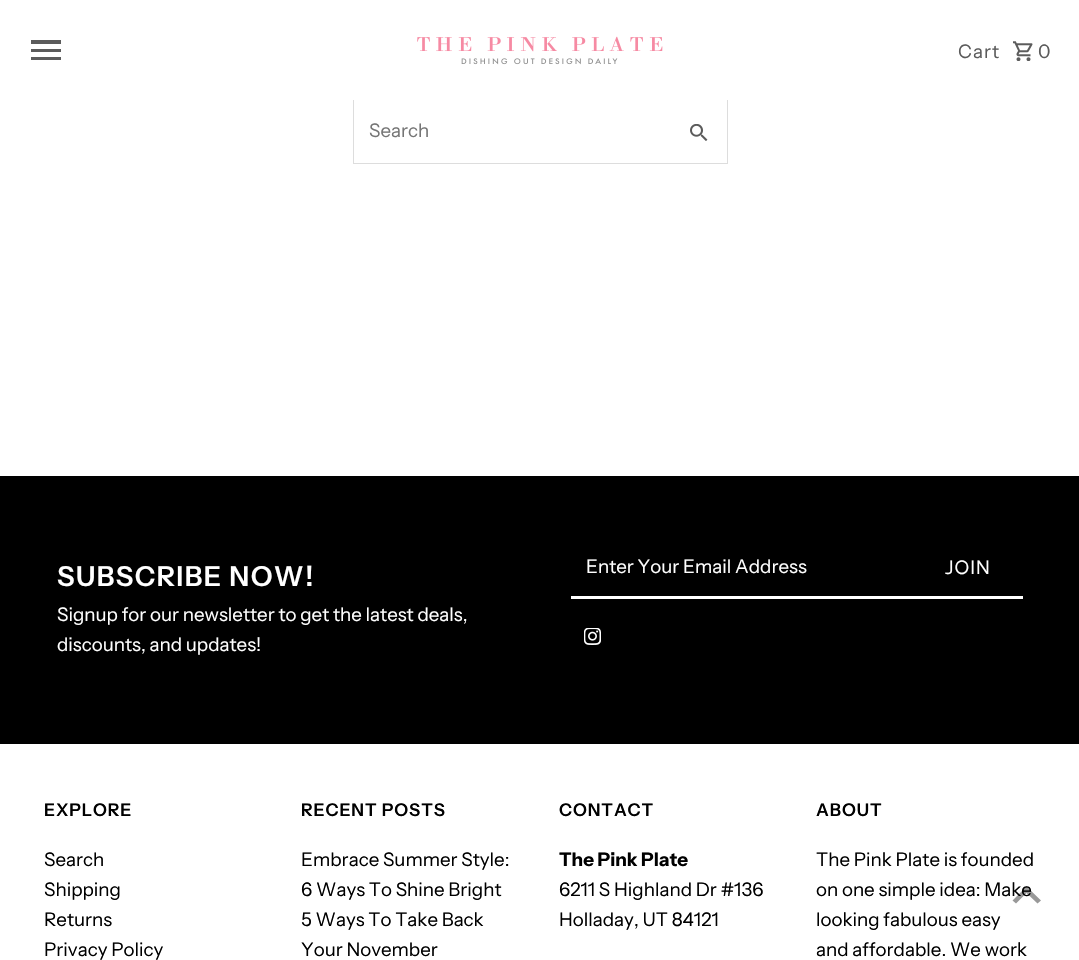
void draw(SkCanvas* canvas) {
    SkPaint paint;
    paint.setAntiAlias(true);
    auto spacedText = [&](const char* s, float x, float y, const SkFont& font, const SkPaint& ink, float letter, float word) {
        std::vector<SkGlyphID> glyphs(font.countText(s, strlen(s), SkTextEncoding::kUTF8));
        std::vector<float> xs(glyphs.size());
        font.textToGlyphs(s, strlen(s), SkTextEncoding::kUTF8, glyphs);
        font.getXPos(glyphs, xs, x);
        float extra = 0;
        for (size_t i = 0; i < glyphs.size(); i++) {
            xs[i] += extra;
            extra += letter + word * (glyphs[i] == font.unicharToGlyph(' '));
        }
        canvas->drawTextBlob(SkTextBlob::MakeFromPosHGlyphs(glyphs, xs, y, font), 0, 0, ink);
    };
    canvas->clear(0xFFFFFFFF);
    paint.setStyle(SkPaint::kStroke_Style);
    paint.setStrokeWidth(1);
    paint.setColor(0xFFDDDDDD);
    canvas->drawRect(SkRect::MakeXYWH(353.5f, 99.5f, 374, 64), paint);
    paint.setStyle(SkPaint::kFill_Style);
    paint.setColor(0xFFFFFFFF);
    canvas->drawRect(SkRect::MakeXYWH(353, 99, 375, 1), paint);
    paint.setColor(0xFF5B5B5B);
    canvas->drawRect(SkRect::MakeXYWH(31, 57, 30, 3), paint);
    canvas->drawRect(SkRect::MakeXYWH(31, 49, 30, 3), paint);
    canvas->drawRect(SkRect::MakeXYWH(31, 40, 30, 4), paint);
    canvas->drawImageRect(SkImages::DeferredFromEncodedData(SkData::MakeFromFileName("img1.png")), SkRect::MakeXYWH(417, 36, 246, 29), SkSamplingOptions());
    SkFont font1(fontMgr->matchFamilyStyle("Instrument Sans", SkFontStyle::Normal()), 18.75f);
    font1.setSubpixel(true);
    spacedText("Cart", 958, 58, font1, paint, 1, 0);
    canvas->drawImageRect(SkImages::DeferredFromEncodedData(SkData::MakeFromFileName("img2.png")), SkRect::MakeXYWH(1013, 41, 20, 20), SkSamplingOptions());
    spacedText("0", 1038, 58, font1, paint, 1, 0);
    paint.setColor(0xFF757575);
    canvas->drawString("Search", 369, 137, font1, paint);
    canvas->drawImageRect(SkImages::DeferredFromEncodedData(SkData::MakeFromFileName("img3.png")), SkRect::MakeXYWH(690, 124, 18, 17), SkSamplingOptions());
    paint.setColor(0xFF000000);
    canvas->drawRect(SkRect::MakeXYWH(0, 476, 1079, 268), paint);
    SkFont font2(fontMgr->matchFamilyStyle("Instrument Sans", SkFontStyle(600, SkFontStyle::kNormal_Width, SkFontStyle::kUpright_Slant)), 27.5f);
    font2.setSubpixel(true);
    paint.setColor(0xFFFFFFFF);
    spacedText("SUBSCRIBE NOW!", 57, 586, font2, paint, 1.4f, 0);
    canvas->drawString("Signup for our newsletter to get the latest deals,", 57, 621, font1, paint);
    canvas->drawString("discounts, and updates!", 57, 651, font1, paint);
    canvas->drawRect(SkRect::MakeXYWH(571, 596, 452, 3), paint);
    canvas->drawString("Enter Your Email Address", 586, 573, font1, paint);
    spacedText("JOIN", 945, 574, font1, paint, 1, 0);
    canvas->drawImageRect(SkImages::DeferredFromEncodedData(SkData::MakeFromFileName("img4.png")), SkRect::MakeXYWH(584, 628, 17, 17), SkSamplingOptions());
    SkFont font3(fontMgr->matchFamilyStyle("Instrument Sans", SkFontStyle(600, SkFontStyle::kNormal_Width, SkFontStyle::kUpright_Slant)), 17.5f);
    font3.setSubpixel(true);
    paint.setColor(0xFF000000);
    spacedText("EXPLORE", 44, 816, font3, paint, 0.9f, 0);
    canvas->drawString("Search", 44, 866, font1, paint);
    canvas->drawString("Shipping", 44, 896, font1, paint);
    canvas->drawString("Returns", 44, 926, font1, paint);
    canvas->drawString("Privacy Policy", 44, 956, font1, paint);
    spacedText("RECENT POSTS", 301, 816, font3, paint, 0.9f, 0);
    canvas->drawString("Embrace Summer Style:", 301, 866, font1, paint);
    canvas->drawString("6 Ways To Shine Bright", 301, 896, font1, paint);
    canvas->drawString("5 Ways To Take Back", 301, 926, font1, paint);
    canvas->drawString("Your November", 301, 956, font1, paint);
    spacedText("CONTACT", 559, 816, font3, paint, 0.9f, 0);
    SkFont font4(fontMgr->matchFamilyStyle("Instrument Sans", SkFontStyle::Bold()), 18.75f);
    font4.setSubpixel(true);
    canvas->drawString("The Pink Plate", 559, 866, font4, paint);
    canvas->drawString("6211 S Highland Dr #136", 559, 896, font1, paint);
    canvas->drawString("Holladay, UT 84121", 559, 926, font1, paint);
    spacedText("ABOUT", 816, 816, font3, paint, 0.9f, 0);
    canvas->drawString("The Pink Plate is founded", 816, 866, font1, paint);
    canvas->drawString("on one simple idea: Make", 816, 896, font1, paint);
    canvas->drawString("looking fabulous easy", 816, 926, font1, paint);
    canvas->drawString("and affordable. We work", 816, 956, font1, paint);
    paint.setColor(0x66000000);
    canvas->drawPath(SkPathBuilder().moveTo(1026.5f, 886.5f).lineTo(1012.5f, 900.5f).lineTo(1016, 903.5f).lineTo(1026.5f, 893).lineTo(1037.5f, 903.5f).lineTo(1041, 900.5f).close().detach(), paint);
}
